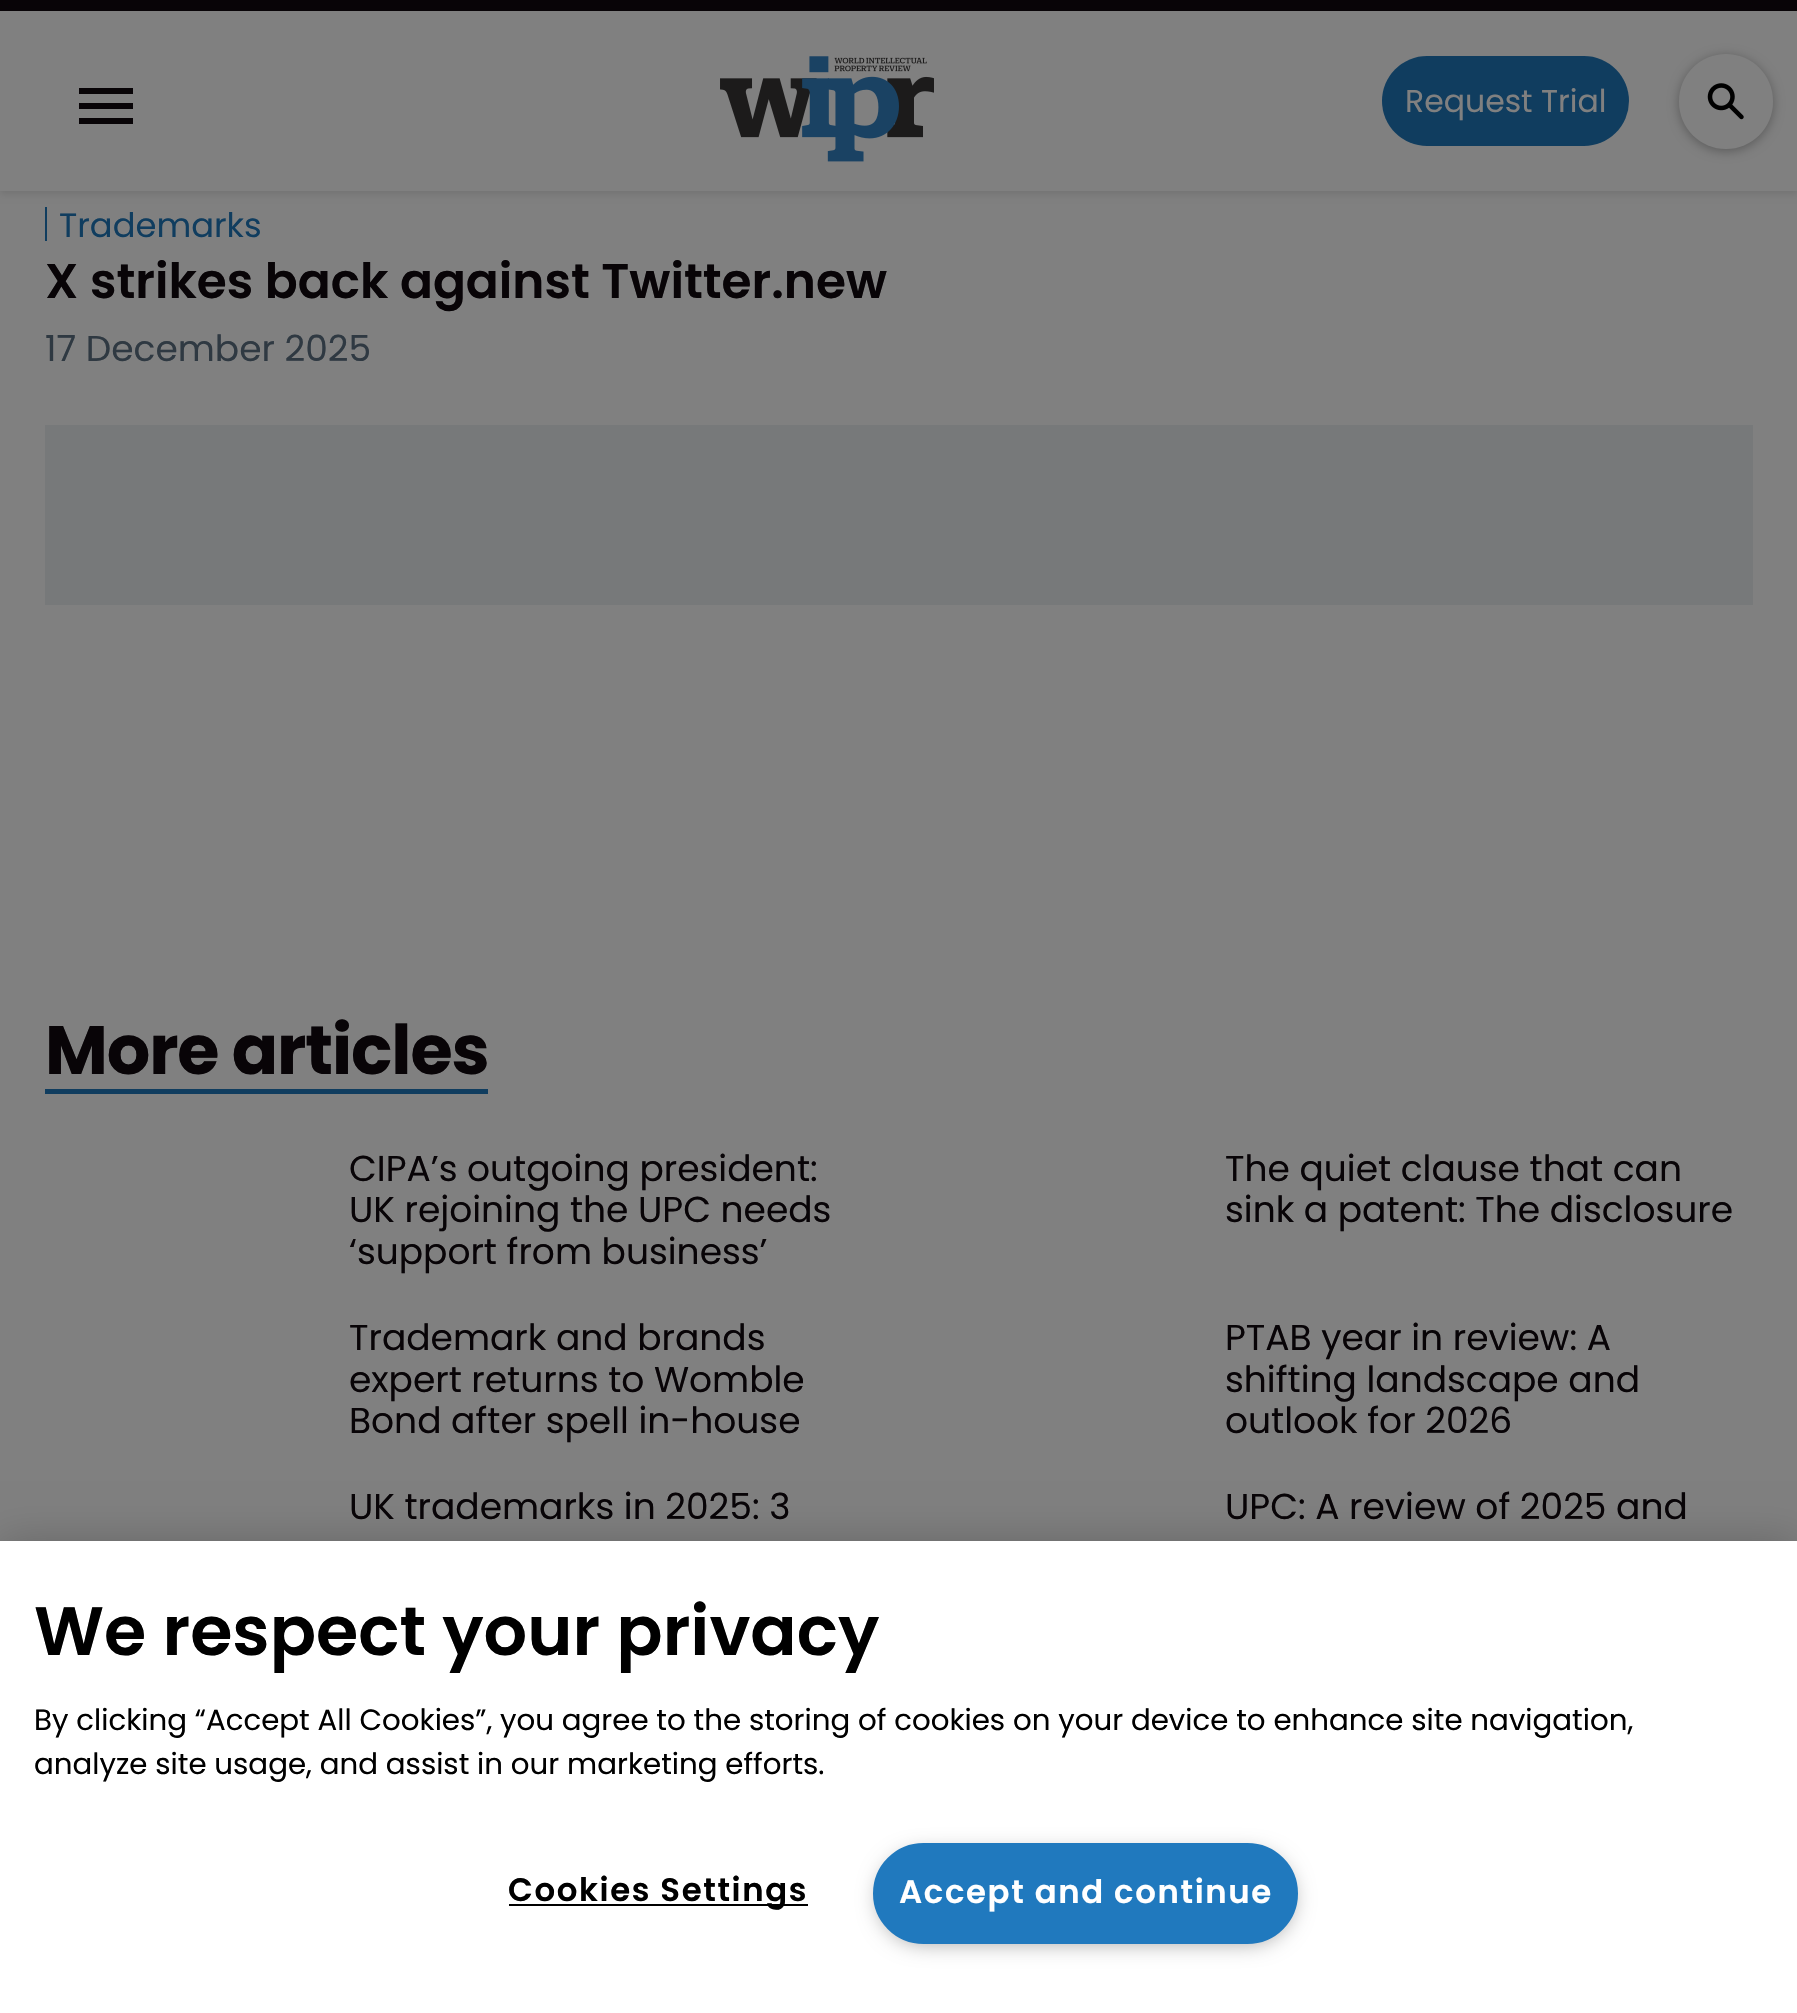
void draw(SkCanvas* canvas) {
    SkPaint paint;
    paint.setAntiAlias(true);
    auto spacedText = [&](const char* s, float x, float y, const SkFont& font, const SkPaint& ink, float letter, float word) {
        std::vector<SkGlyphID> glyphs(font.countText(s, strlen(s), SkTextEncoding::kUTF8));
        std::vector<float> xs(glyphs.size());
        font.textToGlyphs(s, strlen(s), SkTextEncoding::kUTF8, glyphs);
        font.getXPos(glyphs, xs, x);
        float extra = 0;
        for (size_t i = 0; i < glyphs.size(); i++) {
            xs[i] += extra;
            extra += letter + word * (glyphs[i] == font.unicharToGlyph(' '));
        }
        canvas->drawTextBlob(SkTextBlob::MakeFromPosHGlyphs(glyphs, xs, y, font), 0, 0, ink);
    };
    canvas->clear(0xFF808080);
    paint.setColor(0x1A000000);
    paint.setMaskFilter(SkMaskFilter::MakeBlur(kNormal_SkBlurStyle, 3.5f));
    canvas->drawRect(SkRect::MakeXYWH(0, 2, 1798, 192), paint);
    paint.setMaskFilter(nullptr);
    paint.setColor(0xFF808080);
    canvas->drawRect(SkRect::MakeXYWH(0, 11, 1797, 180), paint);
    paint.setColor(0xFF080407);
    canvas->drawRect(SkRect::MakeXYWH(0, 0, 1797, 11), paint);
    canvas->drawPath(SkPathBuilder().moveTo(79, 124).lineTo(133, 124).lineTo(133, 118).lineTo(79, 118).close().moveTo(79, 109).lineTo(133, 109).lineTo(133, 103).lineTo(79, 103).close().moveTo(79, 88).lineTo(79, 94).lineTo(133, 94).lineTo(133, 88).close().detach(), paint);
    canvas->drawImageRect(SkImages::DeferredFromEncodedData(SkData::MakeFromFileName("img1.png")), SkRect::MakeXYWH(720, 56, 214, 106), SkSamplingOptions());
    paint.setColor(0xFF103D5F);
    canvas->drawRoundRect(SkRect::MakeXYWH(1382, 56, 247, 90), 45, 45, paint);
    SkFont font1(fontMgr->matchFamilyStyle("Poppins", SkFontStyle::Normal()), 31.5f);
    font1.setSubpixel(true);
    paint.setColor(0xFF808080);
    canvas->drawString("Request Trial", 1405, 112, font1, paint);
    paint.setColor(0x4D000000);
    paint.setMaskFilter(SkMaskFilter::MakeBlur(kNormal_SkBlurStyle, 5.5f));
    canvas->drawRoundRect(SkRect::MakeXYWH(1679, 56, 94, 95), 47, 47, paint);
    paint.setMaskFilter(nullptr);
    paint.setColor(0xFF808080);
    canvas->drawRoundRect(SkRect::MakeXYWH(1679, 54, 94, 95), 47, 47, paint);
    canvas->drawImageRect(SkImages::DeferredFromEncodedData(SkData::MakeFromFileName("img2.png")), SkRect::MakeXYWH(1707, 83, 37, 37), SkSamplingOptions());
    paint.setColor(0xFF103D5F);
    canvas->drawRect(SkRect::MakeXYWH(45, 207, 2, 34), paint);
    SkFont font2(fontMgr->matchFamilyStyle("Poppins", SkFontStyle::Normal()), 33.75f);
    font2.setSubpixel(true);
    canvas->drawString("Trademarks", 59, 237, font2, paint);
    SkFont font3(fontMgr->matchFamilyStyle("Poppins", SkFontStyle(600, SkFontStyle::kNormal_Width, SkFontStyle::kUpright_Slant)), 48.6f);
    font3.setSubpixel(true);
    paint.setColor(0xFF080407);
    canvas->drawString("X strikes back against Twitter.new", 45, 298, font3, paint);
    SkFont font4(fontMgr->matchFamilyStyle("Poppins", SkFontStyle::Normal()), 36);
    font4.setSubpixel(true);
    paint.setColor(0xFF2F3942);
    canvas->drawString("17 December 2025", 45, 361, font4, paint);
    paint.setColor(0xFF77797A);
    canvas->drawRect(SkRect::MakeXYWH(45, 425, 1708, 180), paint);
    paint.setColor(0xFF103D5F);
    canvas->drawRect(SkRect::MakeXYWH(45, 1089, 443, 5), paint);
    SkFont font5(fontMgr->matchFamilyStyle("Poppins", SkFontStyle::Bold()), 68.4f);
    font5.setSubpixel(true);
    paint.setColor(0xFF080407);
    spacedText("More articles", 45, 1074, font5, paint, -1.1f, 0);
    canvas->drawString("CIPA’s outgoing president:", 349, 1181, font4, paint);
    canvas->drawString("UK rejoining the UPC needs", 349, 1222, font4, paint);
    canvas->drawString("‘support from business’", 349, 1264, font4, paint);
    canvas->drawString("The quiet clause that can", 1225, 1181, font4, paint);
    canvas->drawString("sink a patent: The disclosure", 1225, 1222, font4, paint);
    canvas->drawString("Trademark and brands", 349, 1350, font4, paint);
    canvas->drawString("expert returns to Womble", 349, 1392, font4, paint);
    canvas->drawString("Bond after spell in-house", 349, 1433, font4, paint);
    canvas->drawString("PTAB year in review: A", 1225, 1350, font4, paint);
    canvas->drawString("shifting landscape and", 1225, 1392, font4, paint);
    canvas->drawString("outlook for 2026", 1225, 1433, font4, paint);
    canvas->drawString("UK trademarks in 2025: 3", 349, 1519, font4, paint);
    canvas->drawString("UPC: A review of 2025 and", 1225, 1519, font4, paint);
    paint.setColor(0x33000000);
    paint.setMaskFilter(SkMaskFilter::MakeBlur(kNormal_SkBlurStyle, 20));
    canvas->drawRect(SkRect::MakeXYWH(0, 1541, 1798, 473), paint);
    paint.setMaskFilter(nullptr);
    paint.setColor(0xFFFFFFFF);
    canvas->drawRect(SkRect::MakeXYWH(0, 1541, 1797, 472), paint);
    SkFont font6(fontMgr->matchFamilyStyle("Poppins", SkFontStyle(600, SkFontStyle::kNormal_Width, SkFontStyle::kUpright_Slant)), 68.4f);
    font6.setSubpixel(true);
    paint.setColor(0xFF000000);
    canvas->drawString("We respect your privacy", 34, 1655, font6, paint);
    SkFont font7(fontMgr->matchFamilyStyle("Poppins", SkFontStyle::Normal()), 29.27f);
    font7.setSubpixel(true);
    canvas->drawString("By clicking “Accept All Cookies”, you agree to the storing of cookies on your device to enhance site navigation,", 34, 1730, font7, paint);
    canvas->drawString("analyze site usage, and assist in our marketing efforts.", 34, 1774, font7, paint);
    canvas->drawRect(SkRect::MakeXYWH(509, 1904, 299, 2), paint);
    SkFont font8(fontMgr->matchFamilyStyle("Poppins", SkFontStyle(600, SkFontStyle::kNormal_Width, SkFontStyle::kUpright_Slant)), 32.4f);
    font8.setSubpixel(true);
    spacedText("Cookies Settings", 508, 1901, font8, paint, 1.6f, 0);
    paint.setColor(0xFF999999);
    paint.setMaskFilter(SkMaskFilter::MakeBlur(kNormal_SkBlurStyle, 11));
    canvas->drawRoundRect(SkRect::MakeXYWH(880, 1854, 412, 88), 44, 44, paint);
    paint.setMaskFilter(nullptr);
    paint.setColor(0xFF2079BE);
    canvas->drawRoundRect(SkRect::MakeXYWH(874, 1844, 423, 99), 49.5f, 49.5f, paint);
    paint.setStyle(SkPaint::kStroke_Style);
    paint.setStrokeWidth(2);
    canvas->drawRoundRect(SkRect::MakeXYWH(874, 1844, 423, 99), 49.5f, 49.5f, paint);
    paint.setStyle(SkPaint::kFill_Style);
    paint.setColor(0xFFFFFFFF);
    spacedText("Accept and continue", 899, 1903, font8, paint, 1.6f, 0);
}
